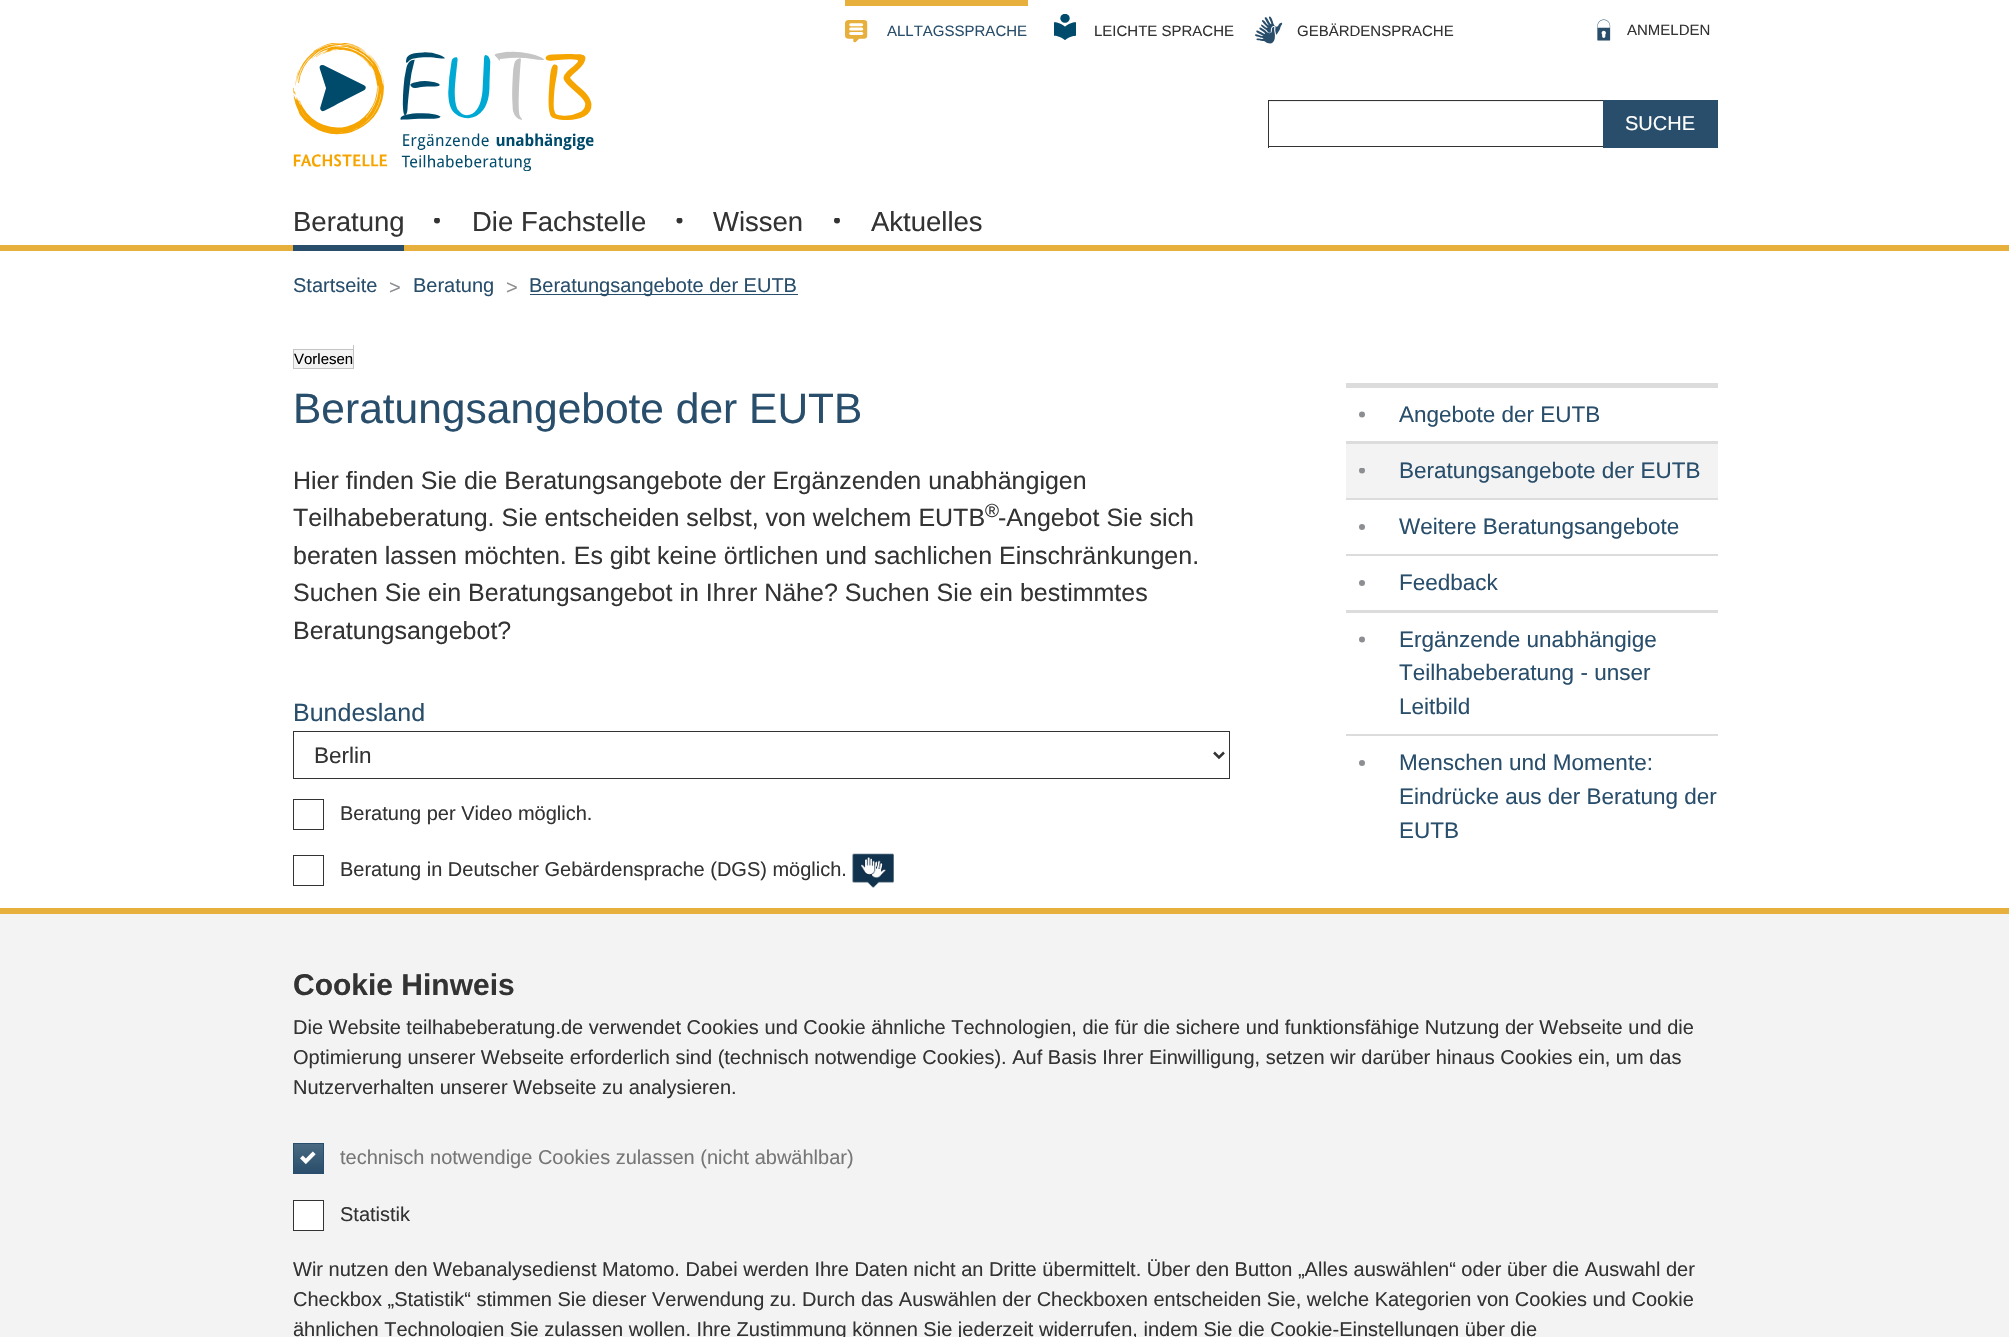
void draw(SkCanvas* canvas) {
    SkPaint paint;
    paint.setAntiAlias(true);
    canvas->clear(0xFFFFFFFF);
    paint.setColor(0xFFE7AF3B);
    canvas->drawRect(SkRect::MakeXYWH(0, 245, 2009, 6), paint);
    canvas->drawRect(SkRect::MakeXYWH(845, 0, 183, 6), paint);
    canvas->drawImageRect(SkImages::DeferredFromEncodedData(SkData::MakeFromFileName("img1.png")), SkRect::MakeXYWH(845, 20, 23, 23), SkSamplingOptions());
    SkFont font1(fontMgr->matchFamilyStyle("Liberation Sans", SkFontStyle::Normal()), 15);
    font1.setSubpixel(true);
    paint.setColor(0xFF294E6B);
    canvas->drawString("ALLTAGSSPRACHE", 887, 36, font1, paint);
    canvas->drawImageRect(SkImages::DeferredFromEncodedData(SkData::MakeFromFileName("img2.png")), SkRect::MakeXYWH(1054, 14, 22, 26), SkSamplingOptions());
    paint.setColor(0xFF333333);
    canvas->drawString("LEICHTE SPRACHE", 1094, 36, font1, paint);
    canvas->drawImageRect(SkImages::DeferredFromEncodedData(SkData::MakeFromFileName("img3.png")), SkRect::MakeXYWH(1255, 16, 28, 28), SkSamplingOptions());
    canvas->drawString("GEBÄRDENSPRACHE", 1297, 36, font1, paint);
    canvas->drawImageRect(SkImages::DeferredFromEncodedData(SkData::MakeFromFileName("img4.png")), SkRect::MakeXYWH(1597, 19, 14, 22), SkSamplingOptions());
    canvas->drawString("ANMELDEN", 1627, 35, font1, paint);
    canvas->drawImageRect(SkImages::DeferredFromEncodedData(SkData::MakeFromFileName("img5.png")), SkRect::MakeXYWH(293, 43, 301, 128), SkSamplingOptions());
    paint.setColor(0xFFF0F0F0);
    canvas->drawRect(SkRect::MakeXYWH(1269, 101, 334, 1), paint);
    paint.setColor(0xFF333333);
    canvas->drawRect(SkRect::MakeXYWH(1268, 100, 335, 1), paint);
    canvas->drawRect(SkRect::MakeXYWH(1268, 146, 335, 1), paint);
    canvas->drawRect(SkRect::MakeXYWH(1268, 100, 1, 48), paint);
    paint.setColor(0xFF294E6B);
    canvas->drawRect(SkRect::MakeXYWH(1603, 100, 115, 48), paint);
    SkFont font2(fontMgr->matchFamilyStyle("Liberation Sans", SkFontStyle::Normal()), 20);
    font2.setSubpixel(true);
    paint.setColor(0xFFFFFFFF);
    canvas->drawString("SUCHE", 1625, 130, font2, paint);
    paint.setColor(0xFF294E6B);
    canvas->drawRect(SkRect::MakeXYWH(293, 245, 111, 6), paint);
    SkFont font3(fontMgr->matchFamilyStyle("Liberation Sans", SkFontStyle::Normal()), 27.5f);
    font3.setSubpixel(true);
    paint.setColor(0xFF333333);
    canvas->drawString("Beratung", 293, 231, font3, paint);
    canvas->save();
    canvas->clipRect(SkRect::MakeXYWH(434, 218, 6, 6));
    canvas->drawCircle(437, 220.5f, 3, paint);
    canvas->restore();
    canvas->drawString("Die Fachstelle", 472, 231, font3, paint);
    canvas->save();
    canvas->clipRect(SkRect::MakeXYWH(676, 218, 7, 6));
    canvas->drawCircle(679.5f, 220.5f, 3, paint);
    canvas->restore();
    canvas->drawString("Wissen", 713, 231, font3, paint);
    canvas->save();
    canvas->clipRect(SkRect::MakeXYWH(834, 218, 6, 6));
    canvas->drawCircle(837, 220.5f, 3, paint);
    canvas->restore();
    canvas->drawString("Aktuelles", 871, 231, font3, paint);
    paint.setColor(0xFF294E6B);
    canvas->drawString("Startseite", 293, 292, font2, paint);
    paint.setColor(0xFF8C8E91);
    canvas->drawString(">", 389, 294, font2, paint);
    paint.setColor(0xFF294E6B);
    canvas->drawString("Beratung", 413, 292, font2, paint);
    paint.setColor(0xFF8C8E91);
    canvas->drawString(">", 506, 294, font2, paint);
    paint.setColor(0xFF294E6B);
    canvas->drawRect(SkRect::MakeXYWH(530, 294, 268, 1), paint);
    canvas->drawString("Beratungsangebote der EUTB", 529, 292, font2, paint);
    paint.setColor(0xFFF3F3F3);
    canvas->drawRect(SkRect::MakeXYWH(294, 350, 59, 18), paint);
    paint.setColor(0xFFC4C4C4);
    canvas->drawRect(SkRect::MakeXYWH(293, 349, 60, 1), paint);
    canvas->drawRect(SkRect::MakeXYWH(293, 368, 60, 1), paint);
    canvas->drawRect(SkRect::MakeXYWH(293, 349, 1, 20), paint);
    paint.setColor(0xFF000000);
    canvas->drawString("Vorlesen", 294, 364, font1, paint);
    paint.setColor(0xFFC4C4C4);
    canvas->drawRect(SkRect::MakeXYWH(353, 345, 1, 24), paint);
    SkFont font4(fontMgr->matchFamilyStyle("Liberation Sans", SkFontStyle::Normal()), 42.5f);
    font4.setSubpixel(true);
    paint.setColor(0xFF294E6B);
    canvas->drawString("Beratungsangebote der EUTB", 293, 423, font4, paint);
    SkFont font5(fontMgr->matchFamilyStyle("Liberation Sans", SkFontStyle::Normal()), 25);
    font5.setSubpixel(true);
    paint.setColor(0xFF333333);
    canvas->drawString("Hier finden Sie die Beratungsangebote der Ergänzenden unabhängigen", 293, 489, font5, paint);
    canvas->drawString("Teilhabeberatung. Sie entscheiden selbst, von welchem EUTB", 293, 526, font5, paint);
    SkFont font6(fontMgr->matchFamilyStyle("Liberation Sans", SkFontStyle::Normal()), 19);
    font6.setSubpixel(true);
    canvas->drawString("®", 985, 517, font6, paint);
    canvas->drawString("-Angebot Sie sich", 998, 526, font5, paint);
    canvas->drawString("beraten lassen möchten. Es gibt keine örtlichen und sachlichen Einschränkungen.", 293, 564, font5, paint);
    canvas->drawString("Suchen Sie ein Beratungsangebot in Ihrer Nähe? Suchen Sie ein bestimmtes", 293, 601, font5, paint);
    canvas->drawString("Beratungsangebot?", 293, 639, font5, paint);
    paint.setColor(0xFF294E6B);
    canvas->drawString("Bundesland", 293, 721, font5, paint);
    paint.setStyle(SkPaint::kStroke_Style);
    paint.setStrokeWidth(1);
    paint.setColor(0xFF333333);
    canvas->drawRect(SkRect::MakeXYWH(293.5f, 731.5f, 936, 47), paint);
    paint.setStrokeWidth(2.5f);
    canvas->drawPath(SkPathBuilder().moveTo(1214, 752.5f).lineTo(1219, 757.5f).lineTo(1224, 752.5f).detach(), paint);
    SkFont font7(fontMgr->matchFamilyStyle("Liberation Sans", SkFontStyle::Normal()), 22.5f);
    font7.setSubpixel(true);
    paint.setStyle(SkPaint::kFill_Style);
    canvas->drawString("Berlin", 314, 763, font7, paint);
    paint.setStyle(SkPaint::kStroke_Style);
    paint.setStrokeWidth(1);
    canvas->drawRect(SkRect::MakeXYWH(293.5f, 799.5f, 30, 30), paint);
    paint.setStyle(SkPaint::kFill_Style);
    canvas->drawString("Beratung per Video möglich.", 340, 820, font2, paint);
    paint.setStyle(SkPaint::kStroke_Style);
    canvas->drawRect(SkRect::MakeXYWH(293.5f, 855.5f, 30, 30), paint);
    paint.setStyle(SkPaint::kFill_Style);
    canvas->drawString("Beratung in Deutscher Gebärdensprache (DGS) möglich.", 340, 876, font2, paint);
    canvas->drawImageRect(SkImages::DeferredFromEncodedData(SkData::MakeFromFileName("img6.png")), SkRect::MakeXYWH(852, 853, 42, 35), SkSamplingOptions());
    paint.setColor(0xFFDCDCDC);
    canvas->drawRect(SkRect::MakeXYWH(1346, 383, 372, 5), paint);
    paint.setColor(0xFF8C8E91);
    canvas->drawCircle(1362, 414.5f, 3, paint);
    paint.setColor(0xFFDCDCDC);
    canvas->drawRect(SkRect::MakeXYWH(1346, 441, 372, 3), paint);
    paint.setColor(0xFF294E6B);
    canvas->drawString("Angebote der EUTB", 1399, 422, font7, paint);
    paint.setColor(0xFFF3F3F3);
    canvas->drawRect(SkRect::MakeXYWH(1346, 444, 372, 54), paint);
    canvas->save();
    canvas->clipRect(SkRect::MakeXYWH(1359, 468, 6, 6));
    paint.setColor(0xFF8C8E91);
    canvas->drawCircle(1362, 470.5f, 3, paint);
    canvas->restore();
    paint.setColor(0xFFDCDCDC);
    canvas->drawRect(SkRect::MakeXYWH(1346, 498, 372, 2), paint);
    paint.setColor(0xFF294E6B);
    canvas->drawString("Beratungsangebote der EUTB", 1399, 478, font7, paint);
    paint.setColor(0xFF8C8E91);
    canvas->drawCircle(1362, 527, 3, paint);
    paint.setColor(0xFFDCDCDC);
    canvas->drawRect(SkRect::MakeXYWH(1346, 554, 372, 2), paint);
    paint.setColor(0xFF294E6B);
    canvas->drawString("Weitere Beratungsangebote", 1399, 534, font7, paint);
    paint.setColor(0xFF8C8E91);
    canvas->drawCircle(1362, 583, 3, paint);
    paint.setColor(0xFFDCDCDC);
    canvas->drawRect(SkRect::MakeXYWH(1346, 610, 372, 3), paint);
    paint.setColor(0xFF294E6B);
    canvas->drawString("Feedback", 1399, 590, font7, paint);
    paint.setColor(0xFF8C8E91);
    canvas->drawCircle(1362, 639.5f, 3, paint);
    paint.setColor(0xFFDCDCDC);
    canvas->drawRect(SkRect::MakeXYWH(1346, 734, 372, 2), paint);
    paint.setColor(0xFF294E6B);
    canvas->drawString("Ergänzende unabhängige", 1399, 647, font7, paint);
    canvas->drawString("Teilhabeberatung - unser", 1399, 680, font7, paint);
    canvas->drawString("Leitbild", 1399, 714, font7, paint);
    paint.setColor(0xFF8C8E91);
    canvas->drawCircle(1362, 763, 3, paint);
    paint.setColor(0xFF294E6B);
    canvas->drawString("Menschen und Momente:", 1399, 770, font7, paint);
    canvas->drawString("Eindrücke aus der Beratung der", 1399, 804, font7, paint);
    canvas->drawString("EUTB", 1399, 838, font7, paint);
    paint.setColor(0xFFF3F3F3);
    canvas->drawRect(SkRect::MakeXYWH(0, 914, 2009, 423), paint);
    paint.setColor(0xFFE7AF3B);
    canvas->drawRect(SkRect::MakeXYWH(0, 908, 2009, 6), paint);
    SkFont font8(fontMgr->matchFamilyStyle("Liberation Sans", SkFontStyle::Bold()), 30);
    font8.setSubpixel(true);
    paint.setColor(0xFF333333);
    canvas->drawString("Cookie Hinweis", 293, 995, font8, paint);
    canvas->drawString("Die Website teilhabeberatung.de verwendet Cookies und Cookie ähnliche Technologien, die für die sichere und funktionsfähige Nutzung der Webseite und die", 293, 1034, font2, paint);
    canvas->drawString("Optimierung unserer Webseite erforderlich sind (technisch notwendige Cookies). Auf Basis Ihrer Einwilligung, setzen wir darüber hinaus Cookies ein, um das", 293, 1064, font2, paint);
    canvas->drawString("Nutzerverhalten unserer Webseite zu analysieren.", 293, 1094, font2, paint);
    {
        const SkColor colors[] = {0xFF496981, 0xFF294E6B};
        const float stops[] = {0, 1};
        const SkPoint ends[] = {{308, 1144}, {308, 1173}};
        paint.setShader(SkGradientShader::MakeLinear(ends, colors, stops, 2, SkTileMode::kClamp));
        paint.setAlpha(255);
    }
    canvas->drawRect(SkRect::MakeXYWH(294, 1144, 29, 29), paint);
    paint.setStyle(SkPaint::kStroke_Style);
    paint.setShader(nullptr);
    paint.setColor(0xFF294E6B);
    canvas->drawRect(SkRect::MakeXYWH(293.5f, 1143.5f, 30, 30), paint);
    paint.setStyle(SkPaint::kFill_Style);
    paint.setColor(0xFF767676);
    canvas->drawString("technisch notwendige Cookies zulassen (nicht abwählbar)", 340, 1164, font2, paint);
    canvas->drawImageRect(SkImages::DeferredFromEncodedData(SkData::MakeFromFileName("img7.png")), SkRect::MakeXYWH(300, 1151, 16, 14), SkSamplingOptions());
    paint.setColor(0xFFFFFFFF);
    canvas->drawRect(SkRect::MakeXYWH(293.5f, 1200.5f, 30, 30), paint);
    paint.setStyle(SkPaint::kStroke_Style);
    paint.setColor(0xFF333333);
    canvas->drawRect(SkRect::MakeXYWH(293.5f, 1200.5f, 30, 30), paint);
    paint.setStyle(SkPaint::kFill_Style);
    canvas->drawString("Statistik", 340, 1221, font2, paint);
    canvas->drawString("Wir nutzen den Webanalysedienst Matomo. Dabei werden Ihre Daten nicht an Dritte übermittelt. Über den Button „Alles auswählen“ oder über die Auswahl der", 293, 1276, font2, paint);
    canvas->drawString("Checkbox „Statistik“ stimmen Sie dieser Verwendung zu. Durch das Auswählen der Checkboxen entscheiden Sie, welche Kategorien von Cookies und Cookie", 293, 1306, font2, paint);
    canvas->drawString("ähnlichen Technologien Sie zulassen wollen. Ihre Zustimmung können Sie jederzeit widerrufen, indem Sie die Cookie-Einstellungen über die", 293, 1336, font2, paint);
}
